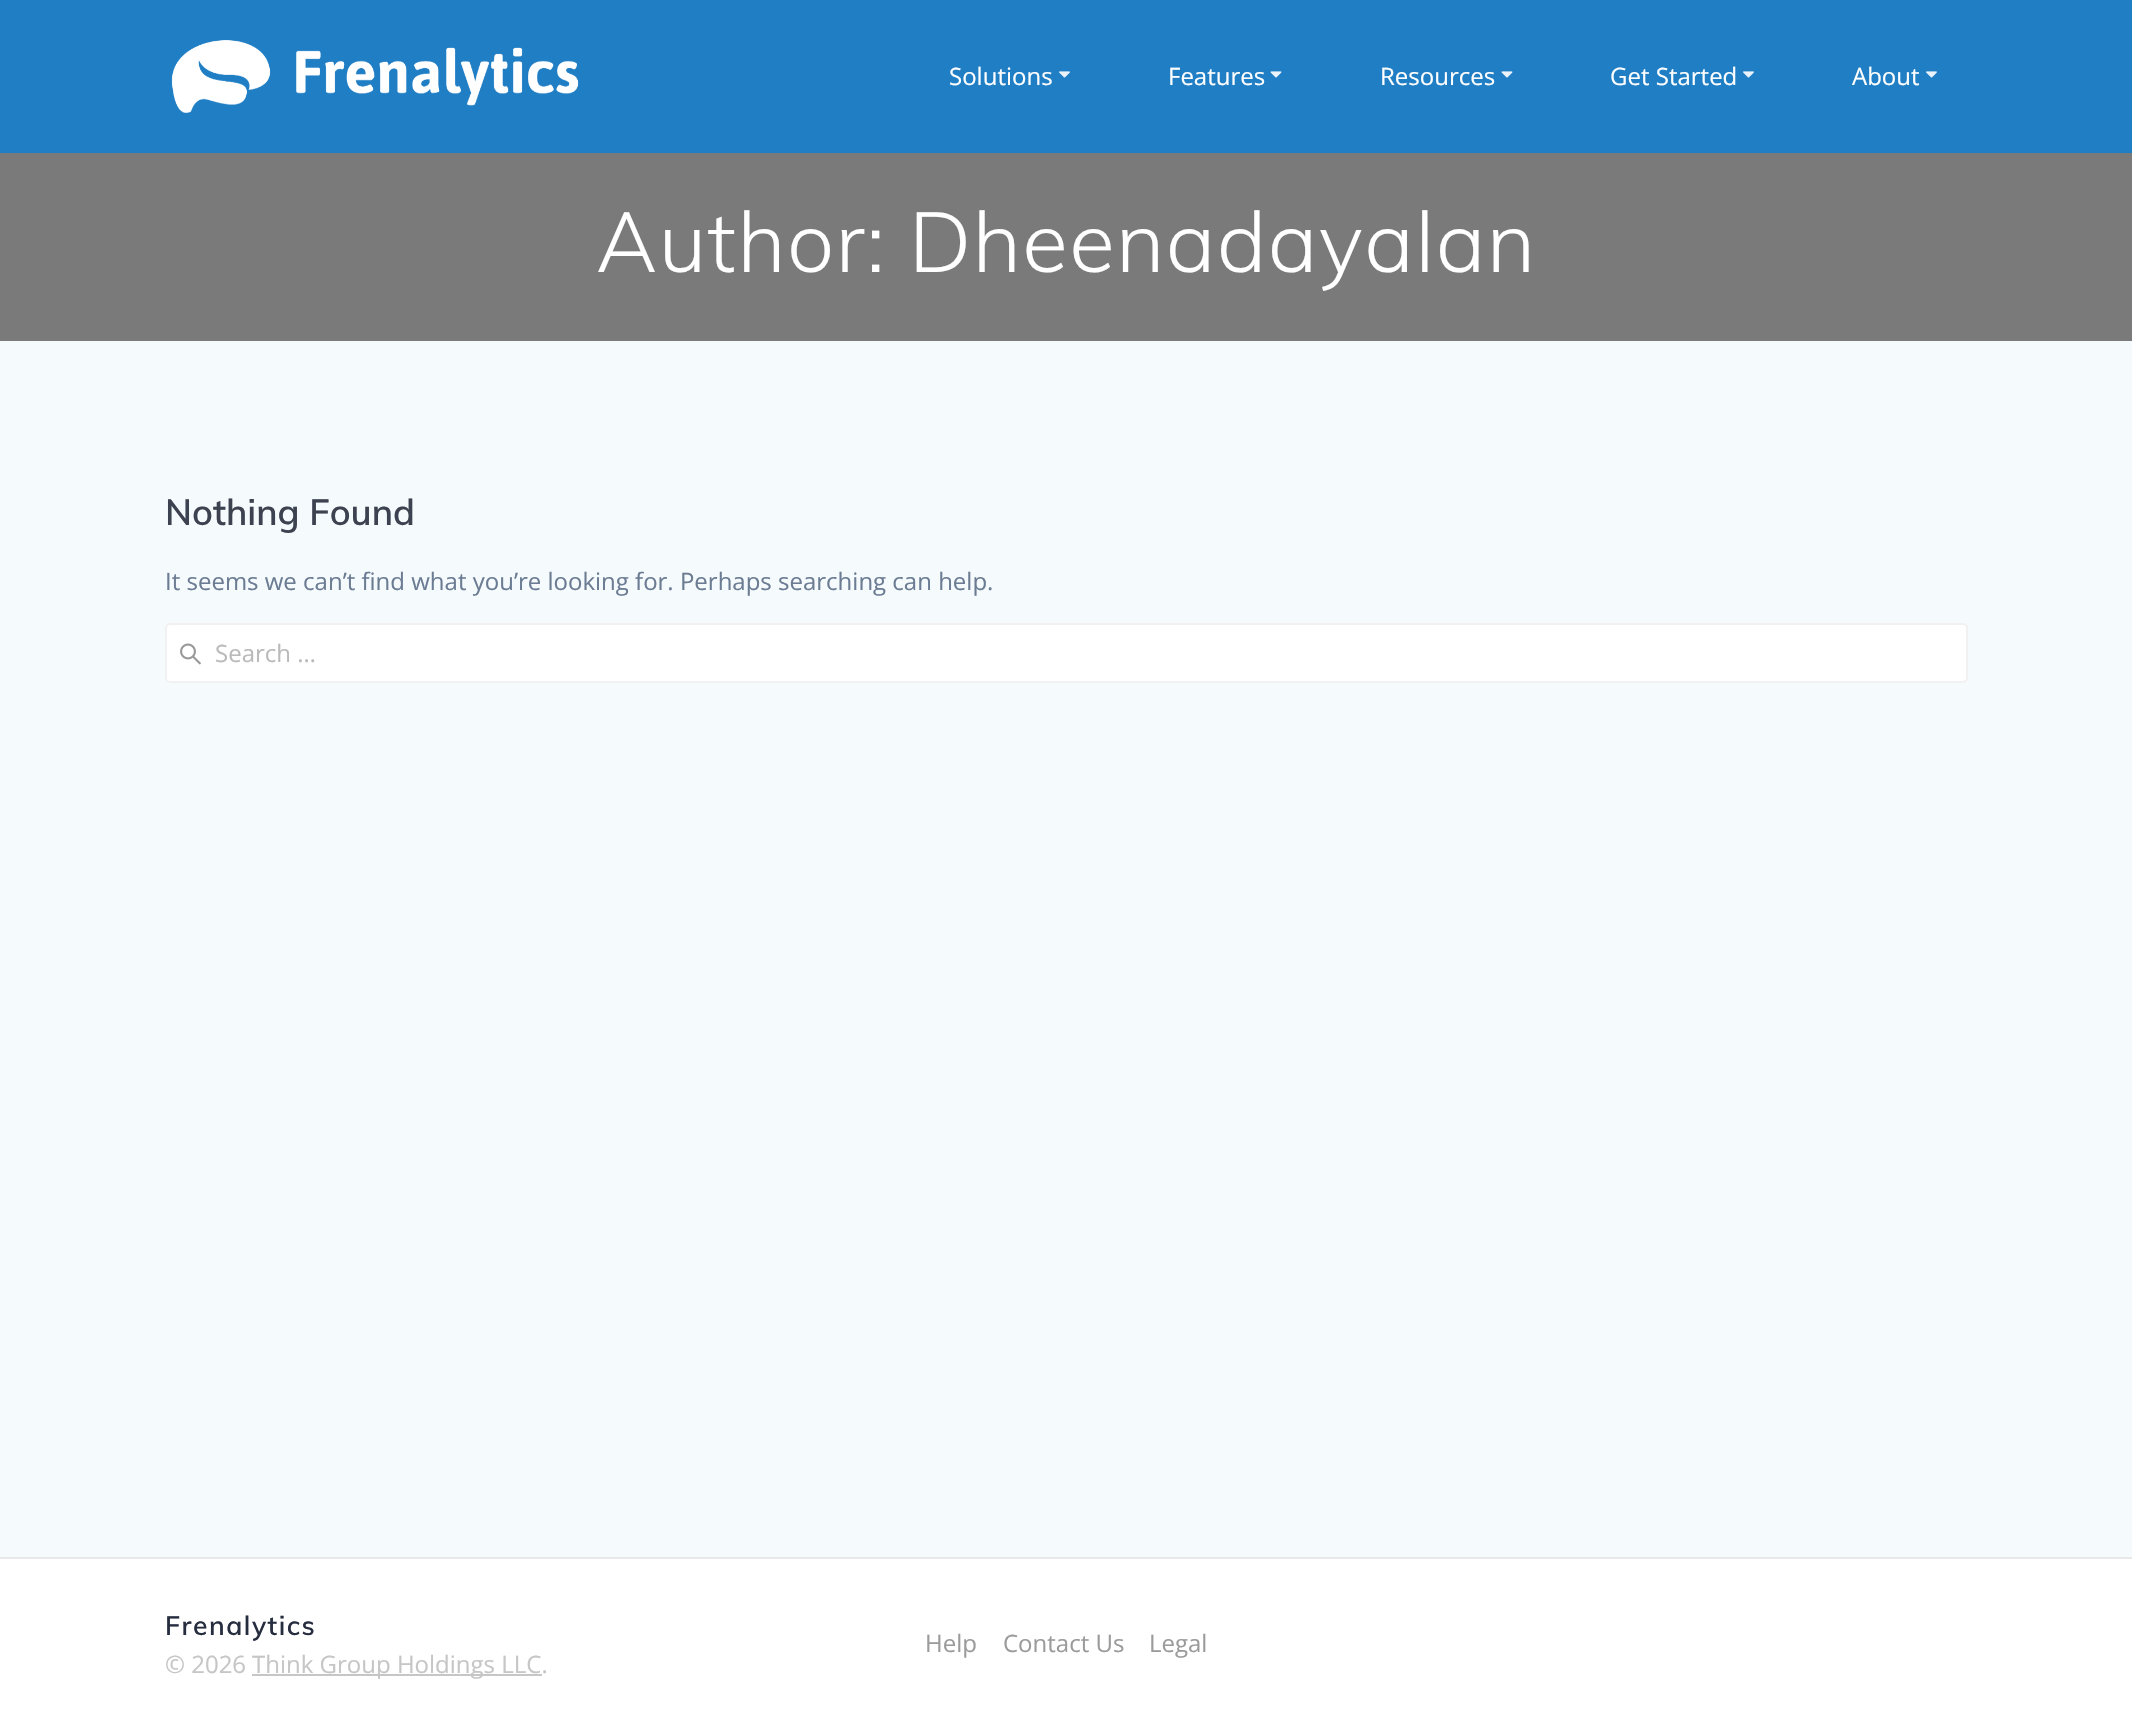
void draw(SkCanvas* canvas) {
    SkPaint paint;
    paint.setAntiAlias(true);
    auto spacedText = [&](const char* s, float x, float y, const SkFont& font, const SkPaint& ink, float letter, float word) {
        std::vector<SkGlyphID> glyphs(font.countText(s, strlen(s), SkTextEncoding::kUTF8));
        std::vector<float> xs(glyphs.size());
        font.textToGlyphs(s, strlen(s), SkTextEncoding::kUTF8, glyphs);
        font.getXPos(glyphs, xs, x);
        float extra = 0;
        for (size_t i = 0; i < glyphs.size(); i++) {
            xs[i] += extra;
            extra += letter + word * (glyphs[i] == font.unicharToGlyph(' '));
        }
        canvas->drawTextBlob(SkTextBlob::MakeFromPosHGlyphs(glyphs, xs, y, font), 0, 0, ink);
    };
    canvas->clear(0xFFFFFFFF);
    paint.setColor(0xFF207EC5);
    canvas->drawRect(SkRect::MakeXYWH(0, 0, 2132, 153), paint);
    canvas->drawImageRect(SkImages::DeferredFromEncodedData(SkData::MakeFromFileName("img1.png")), SkRect::MakeXYWH(171, 40, 408, 73), SkSamplingOptions());
    SkFont font1(fontMgr->matchFamilyStyle("Open Sans", SkFontStyle::Normal()), 24);
    font1.setSubpixel(true);
    paint.setColor(0xFFFFFFFF);
    canvas->drawString("Solutions", 949, 85, font1, paint);
    canvas->drawImageRect(SkImages::DeferredFromEncodedData(SkData::MakeFromFileName("img2.png")), SkRect::MakeXYWH(1059, 71, 11, 7), SkSamplingOptions());
    canvas->drawString("Features", 1168, 85, font1, paint);
    canvas->drawImageRect(SkImages::DeferredFromEncodedData(SkData::MakeFromFileName("img3.png")), SkRect::MakeXYWH(1270, 71, 12, 7), SkSamplingOptions());
    canvas->drawString("Resources", 1380, 85, font1, paint);
    canvas->drawImageRect(SkImages::DeferredFromEncodedData(SkData::MakeFromFileName("img3.png")), SkRect::MakeXYWH(1501, 71, 12, 7), SkSamplingOptions());
    canvas->drawString("Get Started", 1610, 85, font1, paint);
    canvas->drawImageRect(SkImages::DeferredFromEncodedData(SkData::MakeFromFileName("img2.png")), SkRect::MakeXYWH(1743, 71, 11, 7), SkSamplingOptions());
    canvas->drawString("About", 1852, 85, font1, paint);
    canvas->drawImageRect(SkImages::DeferredFromEncodedData(SkData::MakeFromFileName("img2.png")), SkRect::MakeXYWH(1926, 71, 11, 7), SkSamplingOptions());
    paint.setColor(0xFF7A7A7A);
    canvas->drawRect(SkRect::MakeXYWH(0, 153, 2132, 188), paint);
    SkFont font2(fontMgr->matchFamilyStyle("Muli", SkFontStyle(300, SkFontStyle::kNormal_Width, SkFontStyle::kUpright_Slant)), 84);
    font2.setSubpixel(true);
    paint.setColor(0xFFFFFFFF);
    spacedText("Author: Dheenadayalan", 596, 272, font2, paint, 1.35f, 0);
    paint.setColor(0xFFF5FAFD);
    canvas->drawRect(SkRect::MakeXYWH(0, 341, 2132, 1216), paint);
    SkFont font3(fontMgr->matchFamilyStyle("Muli", SkFontStyle(600, SkFontStyle::kNormal_Width, SkFontStyle::kUpright_Slant)), 36);
    font3.setSubpixel(true);
    paint.setColor(0xFF3C424F);
    canvas->drawString("Nothing Found", 165, 525, font3, paint);
    paint.setColor(0xFF6B7C93);
    canvas->drawString("It seems we can’t find what you’re looking for. Perhaps searching can help.", 165, 590, font1, paint);
    paint.setColor(0xFFFFFFFF);
    canvas->drawRoundRect(SkRect::MakeXYWH(165, 623, 1803, 60), 5, 5, paint);
    canvas->drawImageRect(SkImages::DeferredFromEncodedData(SkData::MakeFromFileName("img4.png")), SkRect::MakeXYWH(180, 643, 21, 22), SkSamplingOptions());
    paint.setStyle(SkPaint::kStroke_Style);
    paint.setStrokeWidth(2);
    paint.setColor(0xFFF1F1F1);
    canvas->drawRoundRect(SkRect::MakeXYWH(166, 624, 1801, 58), 4, 4, paint);
    paint.setStyle(SkPaint::kFill_Style);
    paint.setColor(0xFFBABABA);
    canvas->drawString("Search …", 215, 662, font1, paint);
    paint.setColor(0xFFE8E8E8);
    canvas->drawRect(SkRect::MakeXYWH(0, 1557, 2132, 2), paint);
    SkFont font4(fontMgr->matchFamilyStyle("Muli", SkFontStyle(600, SkFontStyle::kNormal_Width, SkFontStyle::kUpright_Slant)), 26.5f);
    font4.setSubpixel(true);
    paint.setColor(0xFF262D3F);
    spacedText("Frenalytics", 165, 1635, font4, paint, 1.5f, 0);
    paint.setColor(0xFFC6C6C6);
    canvas->drawString("© 2026", 165, 1673, font1, paint);
    canvas->drawRect(SkRect::MakeXYWH(252, 1674, 290, 2), paint);
    canvas->drawString("Think Group Holdings LLC.", 252, 1673, font1, paint);
    paint.setColor(0xFF9B9B9B);
    canvas->drawString("Help", 925, 1652, font1, paint);
    canvas->drawString("Contact Us", 1003, 1652, font1, paint);
    canvas->drawString("Legal", 1149, 1652, font1, paint);
}
